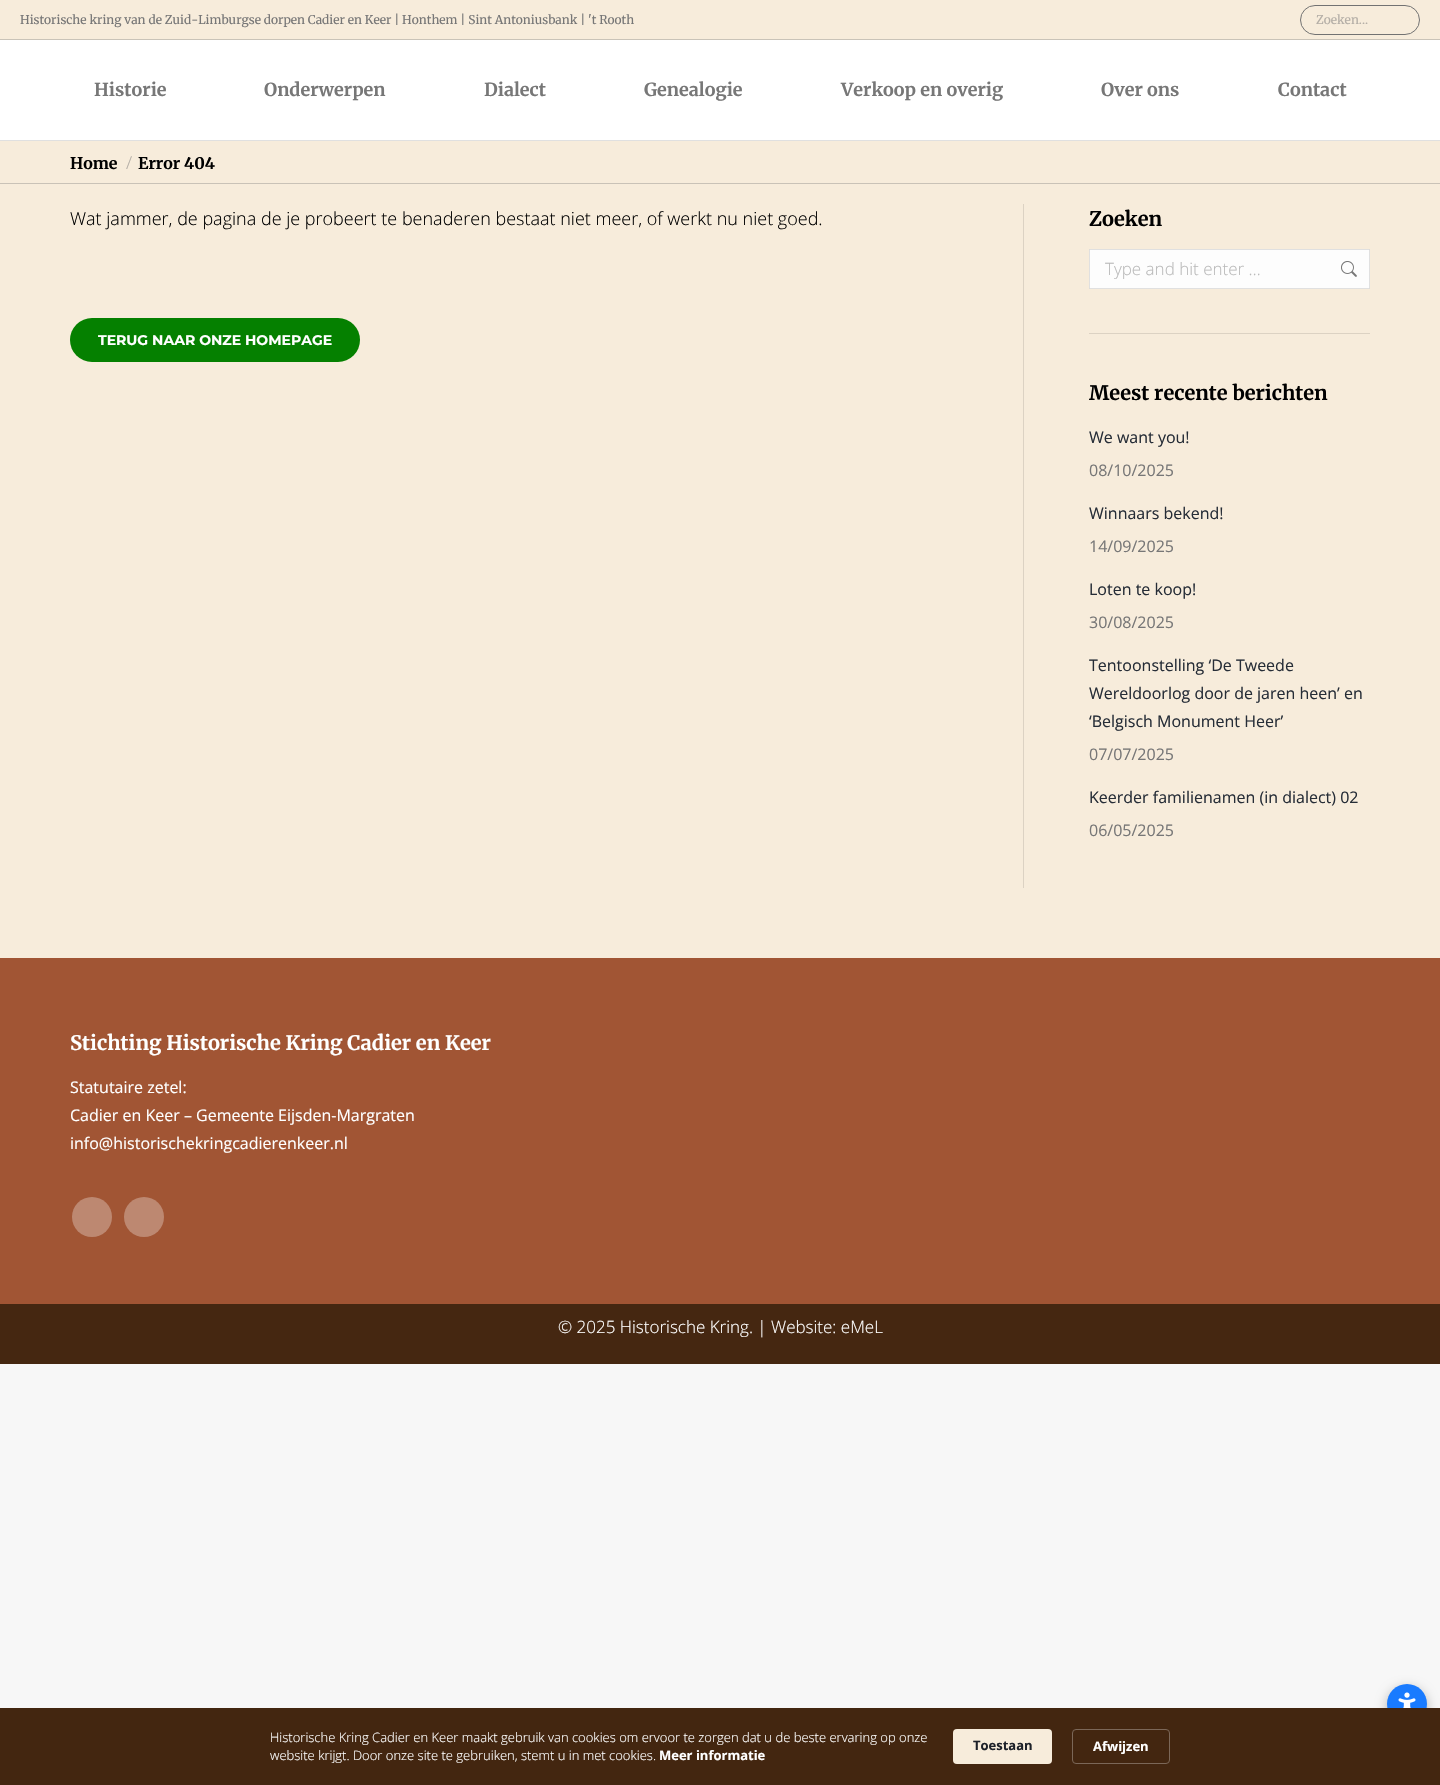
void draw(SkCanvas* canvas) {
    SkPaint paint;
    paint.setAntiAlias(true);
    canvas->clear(0xFFF7F7F7);
    paint.setColor(0xFFF7ECDB);
    canvas->drawRect(SkRect::MakeXYWH(0, 141, 1440, 817), paint);
    paint.setColor(0xFFFFFFFF);
    canvas->drawRect(SkRect::MakeXYWH(0, 40, 1440, 100), paint);
    paint.setColor(0xFFE0E0E0);
    canvas->drawRect(SkRect::MakeXYWH(0, 140, 1440, 1), paint);
    paint.setColor(0xFFF7ECDB);
    canvas->drawRect(SkRect::MakeXYWH(0, 0, 1440, 39), paint);
    SkFont font1(fontMgr->matchFamilyStyle("Merriweather", SkFontStyle::Normal()), 12);
    font1.setSubpixel(true);
    paint.setColor(0xFF777777);
    canvas->drawString("Historische kring van de Zuid-Limburgse dorpen Cadier en Keer | Honthem | Sint Antoniusbank | 't Rooth", 20, 24, font1, paint);
    paint.setStyle(SkPaint::kStroke_Style);
    paint.setStrokeWidth(1);
    paint.setColor(0xFF727272);
    canvas->drawRoundRect(SkRect::MakeXYWH(1300.5f, 5.5f, 119, 29), 14.5f, 14.5f, paint);
    paint.setStyle(SkPaint::kFill_Style);
    paint.setColor(0xFFB5AFA7);
    canvas->drawString("Zoeken...", 1316, 24, font1, paint);
    paint.setColor(0xFFC9C3B8);
    canvas->drawRect(SkRect::MakeXYWH(0, 39, 1440, 1), paint);
    SkFont font2(fontMgr->matchFamilyStyle("Merriweather", SkFontStyle::Bold()), 18);
    font2.setSubpixel(true);
    paint.setColor(0xFF777777);
    canvas->drawString("Historie", 94, 96, font2, paint);
    canvas->drawString("Onderwerpen", 264, 96, font2, paint);
    canvas->drawString("Dialect", 484, 96, font2, paint);
    canvas->drawString("Genealogie", 644, 96, font2, paint);
    canvas->drawString("Verkoop en overig", 841, 96, font2, paint);
    canvas->drawString("Over ons", 1101, 96, font2, paint);
    canvas->drawString("Contact", 1278, 96, font2, paint);
    paint.setColor(0xFFC9C2B7);
    canvas->drawRect(SkRect::MakeXYWH(0, 183, 1440, 1), paint);
    SkFont font3(fontMgr->matchFamilyStyle("Merriweather", SkFontStyle::Bold()), 16);
    font3.setSubpixel(true);
    paint.setColor(0xFF000000);
    canvas->drawString("Home", 70, 169, font3, paint);
    SkFont font4(fontMgr->matchFamilyStyle("Open Sans", SkFontStyle(300, SkFontStyle::kNormal_Width, SkFontStyle::kUpright_Slant)), 18);
    font4.setSubpixel(true);
    paint.setColor(0xFFB5AFA7);
    canvas->drawString("/", 126, 169, font4, paint);
    paint.setColor(0xFF000000);
    canvas->drawString("Error 404", 138, 169, font3, paint);
    canvas->drawString("Wat jammer, de pagina de je probeert te benaderen bestaat niet meer, of werkt nu niet goed.", 70, 225, font4, paint);
    paint.setColor(0xFF058000);
    canvas->drawRoundRect(SkRect::MakeXYWH(70, 318, 290, 44), 22, 22, paint);
    SkFont font5(fontMgr->matchFamilyStyle("Montserrat", SkFontStyle::Bold()), 14);
    font5.setSubpixel(true);
    paint.setColor(0xFFFFFFFF);
    canvas->drawString("TERUG NAAR ONZE HOMEPAGE", 98, 345, font5, paint);
    paint.setColor(0xFFDCD2C3);
    canvas->drawRect(SkRect::MakeXYWH(1023, 204, 1, 684), paint);
    SkFont font6(fontMgr->matchFamilyStyle("Merriweather", SkFontStyle::Bold()), 20);
    font6.setSubpixel(true);
    paint.setColor(0xFF000000);
    canvas->drawString("Zoeken", 1089, 226, font6, paint);
    paint.setColor(0xFFFDFDFD);
    canvas->drawRoundRect(SkRect::MakeXYWH(1089, 249, 281, 40), 1, 1, paint);
    paint.setStyle(SkPaint::kStroke_Style);
    paint.setColor(0x24333333);
    canvas->drawRect(SkRect::MakeXYWH(1089.5f, 249.5f, 280, 39), paint);
    SkFont font7(fontMgr->matchFamilyStyle("Open Sans", SkFontStyle(300, SkFontStyle::kNormal_Width, SkFontStyle::kUpright_Slant)), 17);
    font7.setSubpixel(true);
    paint.setStyle(SkPaint::kFill_Style);
    paint.setColor(0xFFBABABA);
    canvas->drawString("Type and hit enter …", 1105, 275, font7, paint);
    canvas->drawImageRect(SkImages::DeferredFromEncodedData(SkData::MakeFromFileName("img1.png")), SkRect::MakeXYWH(1341, 261, 16, 16), SkSamplingOptions());
    paint.setColor(0xFFDCD2C3);
    canvas->drawRect(SkRect::MakeXYWH(1089, 333, 281, 1), paint);
    paint.setColor(0xFF000000);
    canvas->drawString("Meest recente berichten", 1089, 400, font6, paint);
    SkFont font8(fontMgr->matchFamilyStyle("Open Sans", SkFontStyle::Normal()), 16);
    font8.setSubpixel(true);
    paint.setColor(0xFF262D37);
    canvas->drawString("We want you!", 1089, 443, font8, paint);
    paint.setColor(0xFF777777);
    canvas->drawString("08/10/2025", 1089, 476, font8, paint);
    paint.setColor(0xFF262D37);
    canvas->drawString("Winnaars bekend!", 1089, 519, font8, paint);
    paint.setColor(0xFF777777);
    canvas->drawString("14/09/2025", 1089, 552, font8, paint);
    paint.setColor(0xFF262D37);
    canvas->drawString("Loten te koop!", 1089, 595, font8, paint);
    paint.setColor(0xFF777777);
    canvas->drawString("30/08/2025", 1089, 628, font8, paint);
    paint.setColor(0xFF262D37);
    canvas->drawString("Tentoonstelling ‘De Tweede", 1089, 671, font8, paint);
    canvas->drawString("Wereldoorlog door de jaren heen’ en", 1089, 699, font8, paint);
    canvas->drawString("‘Belgisch Monument Heer’", 1089, 727, font8, paint);
    paint.setColor(0xFF777777);
    canvas->drawString("07/07/2025", 1089, 760, font8, paint);
    paint.setColor(0xFF262D37);
    canvas->drawString("Keerder familienamen (in dialect) 02", 1089, 803, font8, paint);
    paint.setColor(0xFF777777);
    canvas->drawString("06/05/2025", 1089, 836, font8, paint);
    paint.setColor(0xFFA15534);
    canvas->drawRect(SkRect::MakeXYWH(0, 958, 1440, 346), paint);
    paint.setColor(0xFFFFFFFF);
    canvas->drawString("Stichting Historische Kring Cadier en Keer", 70, 1050, font6, paint);
    canvas->drawString("Statutaire zetel:", 70, 1093, font8, paint);
    canvas->drawString("Cadier en Keer – Gemeente Eijsden-Margraten", 70, 1121, font8, paint);
    canvas->drawString("info@historischekringcadierenkeer.nl", 70, 1149, font8, paint);
    paint.setColor(0xFFBD8871);
    canvas->drawCircle(92, 1217, 20, paint);
    canvas->drawCircle(144, 1217, 20, paint);
    paint.setColor(0xFF452711);
    canvas->drawRect(SkRect::MakeXYWH(0, 1304, 1440, 60), paint);
    paint.setColor(0xFFFFFFFF);
    canvas->drawString("© 2025 Historische Kring. | Website: eMeL", 558, 1333, font7, paint);
    paint.setColor(0x4D000000);
    paint.setMaskFilter(SkMaskFilter::MakeBlur(kNormal_SkBlurStyle, 6));
    canvas->drawRoundRect(SkRect::MakeXYWH(1387, 1688, 40, 40), 20, 20, paint);
    paint.setMaskFilter(nullptr);
    paint.setColor(0xFF197BFF);
    canvas->drawCircle(1407, 1704, 20, paint);
    paint.setColor(0xFF432610);
    canvas->drawRect(SkRect::MakeXYWH(0, 1708, 1440, 77), paint);
    SkFont font9(fontMgr->matchFamilyStyle("Open Sans", SkFontStyle(300, SkFontStyle::kNormal_Width, SkFontStyle::kUpright_Slant)), 13);
    font9.setSubpixel(true);
    paint.setColor(0xFFFFFFFF);
    canvas->drawString("Historische Kring Cadier en Keer maakt gebruik van cookies om ervoor te zorgen dat u de beste ervaring op onze", 270, 1742, font9, paint);
    canvas->drawString("website krijgt. Door onze site te gebruiken, stemt u in met cookies.", 270, 1760, font9, paint);
    SkFont font10(fontMgr->matchFamilyStyle("Open Sans", SkFontStyle::Bold()), 13);
    font10.setSubpixel(true);
    canvas->drawString("Meer informatie", 659, 1760, font10, paint);
    paint.setColor(0xFFF7ECDB);
    canvas->drawRoundRect(SkRect::MakeXYWH(953, 1729, 99, 35), 4, 4, paint);
    paint.setColor(0xFF1D2129);
    canvas->drawString("Toestaan", 973, 1750, font10, paint);
    paint.setStyle(SkPaint::kStroke_Style);
    paint.setColor(0xFF7B6758);
    canvas->drawRoundRect(SkRect::MakeXYWH(1072.5f, 1729.5f, 97, 34), 3.5f, 3.5f, paint);
    paint.setStyle(SkPaint::kFill_Style);
    paint.setColor(0xFFFFFFFF);
    canvas->drawString("Afwijzen", 1093, 1751, font10, paint);
    canvas->drawImageRect(SkImages::DeferredFromEncodedData(SkData::MakeFromFileName("img2.png")), SkRect::MakeXYWH(1398, 1692, 18, 16), SkSamplingOptions());
}
